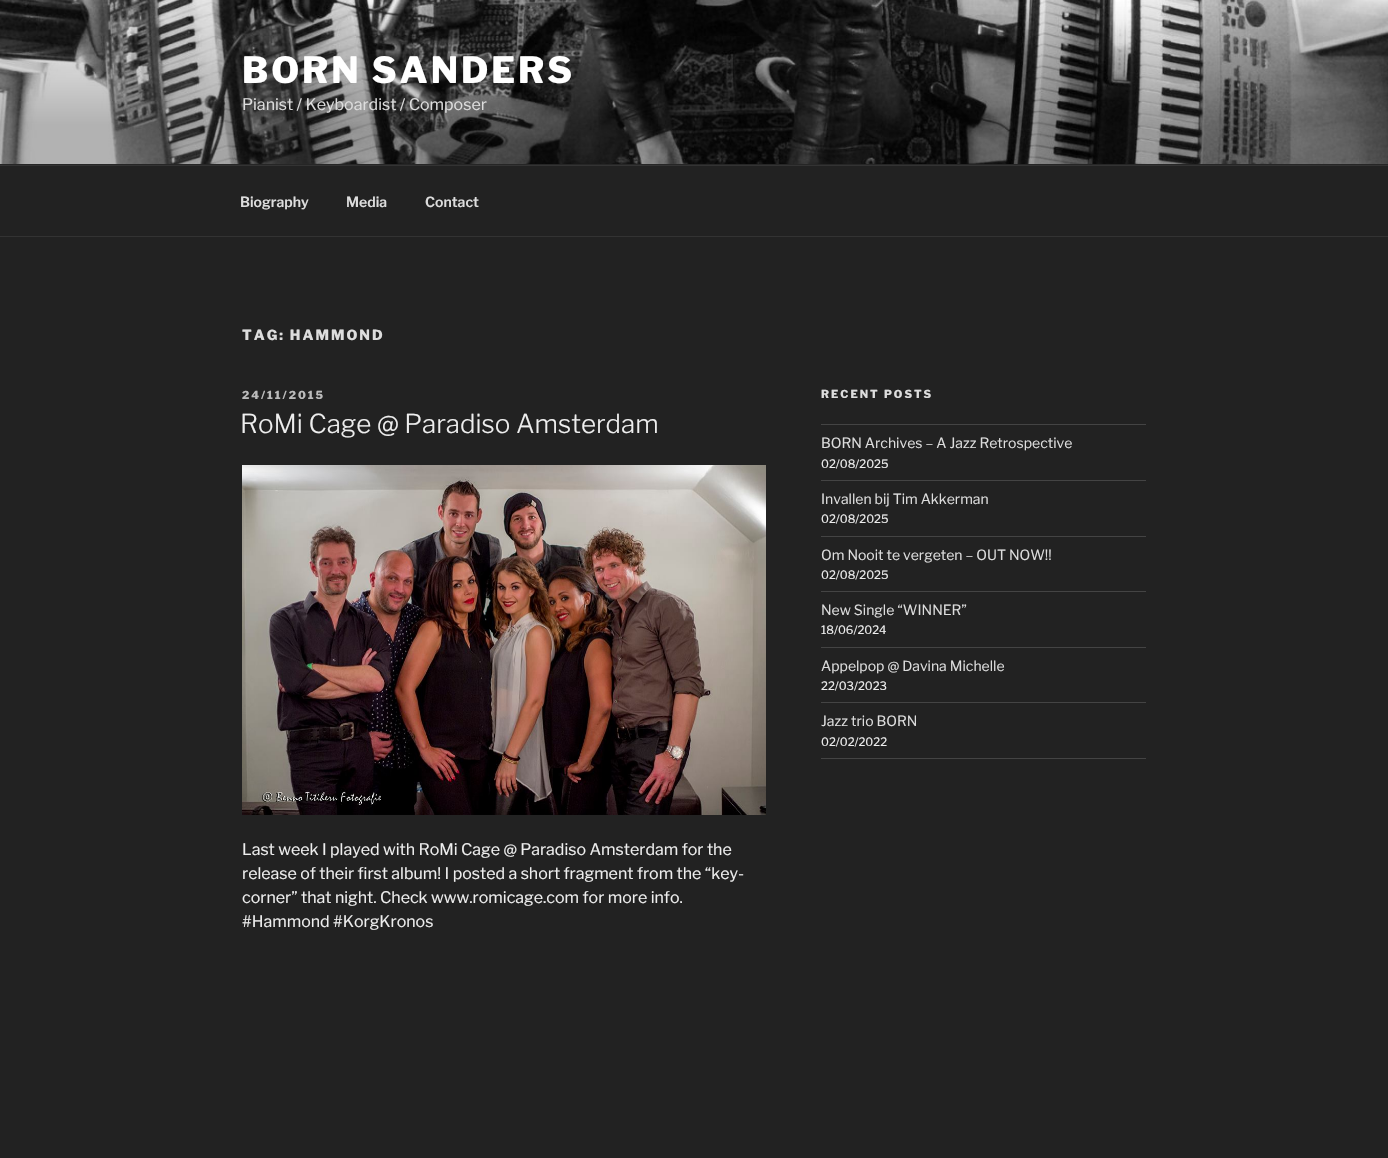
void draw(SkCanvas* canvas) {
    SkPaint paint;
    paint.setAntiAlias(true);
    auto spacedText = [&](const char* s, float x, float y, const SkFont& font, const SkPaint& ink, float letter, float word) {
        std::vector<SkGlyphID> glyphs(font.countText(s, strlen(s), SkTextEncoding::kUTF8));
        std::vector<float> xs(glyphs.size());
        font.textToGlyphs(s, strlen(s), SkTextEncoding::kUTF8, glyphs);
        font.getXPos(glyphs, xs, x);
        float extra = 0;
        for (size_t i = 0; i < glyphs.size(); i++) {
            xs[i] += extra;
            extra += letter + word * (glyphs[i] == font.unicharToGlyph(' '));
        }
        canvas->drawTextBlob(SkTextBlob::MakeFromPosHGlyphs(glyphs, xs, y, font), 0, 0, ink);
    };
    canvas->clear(0xFF222222);
    paint.setColor(0xFF262626);
    canvas->drawRect(SkRect::MakeXYWH(0, 164, 1388, 1), paint);
    canvas->drawImageRect(SkImages::DeferredFromEncodedData(SkData::MakeFromFileName("img1.png")), SkRect::MakeXYWH(0, 0, 1388, 164), SkSamplingOptions());
    SkFont font1(fontMgr->matchFamilyStyle("Libre Franklin", SkFontStyle(100, SkFontStyle::kNormal_Width, SkFontStyle::kUpright_Slant)), 36);
    font1.setSubpixel(true);
    paint.setColor(0xFFFFFFFF);
    spacedText("BORN SANDERS", 242, 83, font1, paint, 2.9f, 0);
    SkFont font2(fontMgr->matchFamilyStyle("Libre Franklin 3", SkFontStyle(100, SkFontStyle::kNormal_Width, SkFontStyle::kUpright_Slant)), 16);
    font2.setSubpixel(true);
    paint.setColor(0xFFDDDDDD);
    canvas->drawString("Pianist / Keyboardist / Composer", 242, 110, font2, paint);
    paint.setColor(0xFF333333);
    canvas->drawRect(SkRect::MakeXYWH(0, 165, 1388, 1), paint);
    canvas->drawRect(SkRect::MakeXYWH(0, 236, 1388, 1), paint);
    SkFont font3(fontMgr->matchFamilyStyle("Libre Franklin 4", SkFontStyle(100, SkFontStyle::kNormal_Width, SkFontStyle::kUpright_Slant)), 14);
    font3.setSubpixel(true);
    paint.setColor(0xFFDDDDDD);
    canvas->drawString("Biography", 240, 207, font3, paint);
    canvas->drawString("Media", 346, 207, font3, paint);
    canvas->drawString("Contact", 425, 207, font3, paint);
    SkFont font4(fontMgr->matchFamilyStyle("Libre Franklin", SkFontStyle(100, SkFontStyle::kNormal_Width, SkFontStyle::kUpright_Slant)), 14);
    font4.setSubpixel(true);
    spacedText("TAG: HAMMOND", 242, 340, font4, paint, 2, 0);
    SkFont font5(fontMgr->matchFamilyStyle("Libre Franklin", SkFontStyle(100, SkFontStyle::kNormal_Width, SkFontStyle::kUpright_Slant)), 11);
    font5.setSubpixel(true);
    paint.setColor(0xFFBBBBBB);
    spacedText("24/11/2015", 242, 399, font5, paint, 2, 0);
    SkFont font6(fontMgr->matchFamilyStyle("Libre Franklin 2", SkFontStyle(100, SkFontStyle::kNormal_Width, SkFontStyle::kUpright_Slant)), 26);
    font6.setSubpixel(true);
    paint.setColor(0xFFEEEEEE);
    canvas->drawString("RoMi Cage @ Paradiso Amsterdam", 240, 433, font6, paint);
    canvas->drawImageRect(SkImages::DeferredFromEncodedData(SkData::MakeFromFileName("img2.png")), SkRect::MakeXYWH(242, 465, 524, 350), SkSamplingOptions());
    canvas->drawString("Last week I played with RoMi Cage @ Paradiso Amsterdam for the", 242, 855, font2, paint);
    canvas->drawString("release of their first album! I posted a short fragment from the “key-", 242, 879, font2, paint);
    canvas->drawString("corner” that night. Check www.romicage.com for more info.", 242, 903, font2, paint);
    canvas->drawString("#Hammond #KorgKronos", 242, 927, font2, paint);
    paint.setColor(0xFFDDDDDD);
    spacedText("RECENT POSTS", 821, 398, font5, paint, 2, 0);
    paint.setColor(0xFF444444);
    canvas->drawRect(SkRect::MakeXYWH(821, 424, 325, 1), paint);
    canvas->drawRect(SkRect::MakeXYWH(821, 480, 325, 1), paint);
    SkFont font7(fontMgr->matchFamilyStyle("Libre Franklin 3", SkFontStyle(100, SkFontStyle::kNormal_Width, SkFontStyle::kUpright_Slant)), 14);
    font7.setSubpixel(true);
    paint.setColor(0xFFDDDDDD);
    canvas->drawString("BORN Archives – A Jazz Retrospective", 821, 448, font7, paint);
    SkFont font8(fontMgr->matchFamilyStyle("Libre Franklin 3", SkFontStyle(100, SkFontStyle::kNormal_Width, SkFontStyle::kUpright_Slant)), 11.5f);
    font8.setSubpixel(true);
    paint.setColor(0xFFEEEEEE);
    canvas->drawString("02/08/2025", 821, 468, font8, paint);
    paint.setColor(0xFF444444);
    canvas->drawRect(SkRect::MakeXYWH(821, 536, 325, 1), paint);
    paint.setColor(0xFFDDDDDD);
    canvas->drawString("Invallen bij Tim Akkerman", 821, 504, font7, paint);
    paint.setColor(0xFFEEEEEE);
    canvas->drawString("02/08/2025", 821, 523, font8, paint);
    paint.setColor(0xFF444444);
    canvas->drawRect(SkRect::MakeXYWH(821, 591, 325, 1), paint);
    paint.setColor(0xFFDDDDDD);
    canvas->drawString("Om Nooit te vergeten – OUT NOW!!", 821, 560, font7, paint);
    paint.setColor(0xFFEEEEEE);
    canvas->drawString("02/08/2025", 821, 579, font8, paint);
    paint.setColor(0xFF444444);
    canvas->drawRect(SkRect::MakeXYWH(821, 647, 325, 1), paint);
    paint.setColor(0xFFDDDDDD);
    canvas->drawString("New Single “WINNER”", 821, 615, font7, paint);
    paint.setColor(0xFFEEEEEE);
    canvas->drawString("18/06/2024", 821, 634, font8, paint);
    paint.setColor(0xFF444444);
    canvas->drawRect(SkRect::MakeXYWH(821, 702, 325, 1), paint);
    paint.setColor(0xFFDDDDDD);
    canvas->drawString("Appelpop @ Davina Michelle", 821, 671, font7, paint);
    paint.setColor(0xFFEEEEEE);
    canvas->drawString("22/03/2023", 821, 690, font8, paint);
    paint.setColor(0xFF444444);
    canvas->drawRect(SkRect::MakeXYWH(821, 758, 325, 1), paint);
    paint.setColor(0xFFDDDDDD);
    canvas->drawString("Jazz trio BORN", 821, 726, font7, paint);
    paint.setColor(0xFFEEEEEE);
    canvas->drawString("02/02/2022", 821, 746, font8, paint);
}
